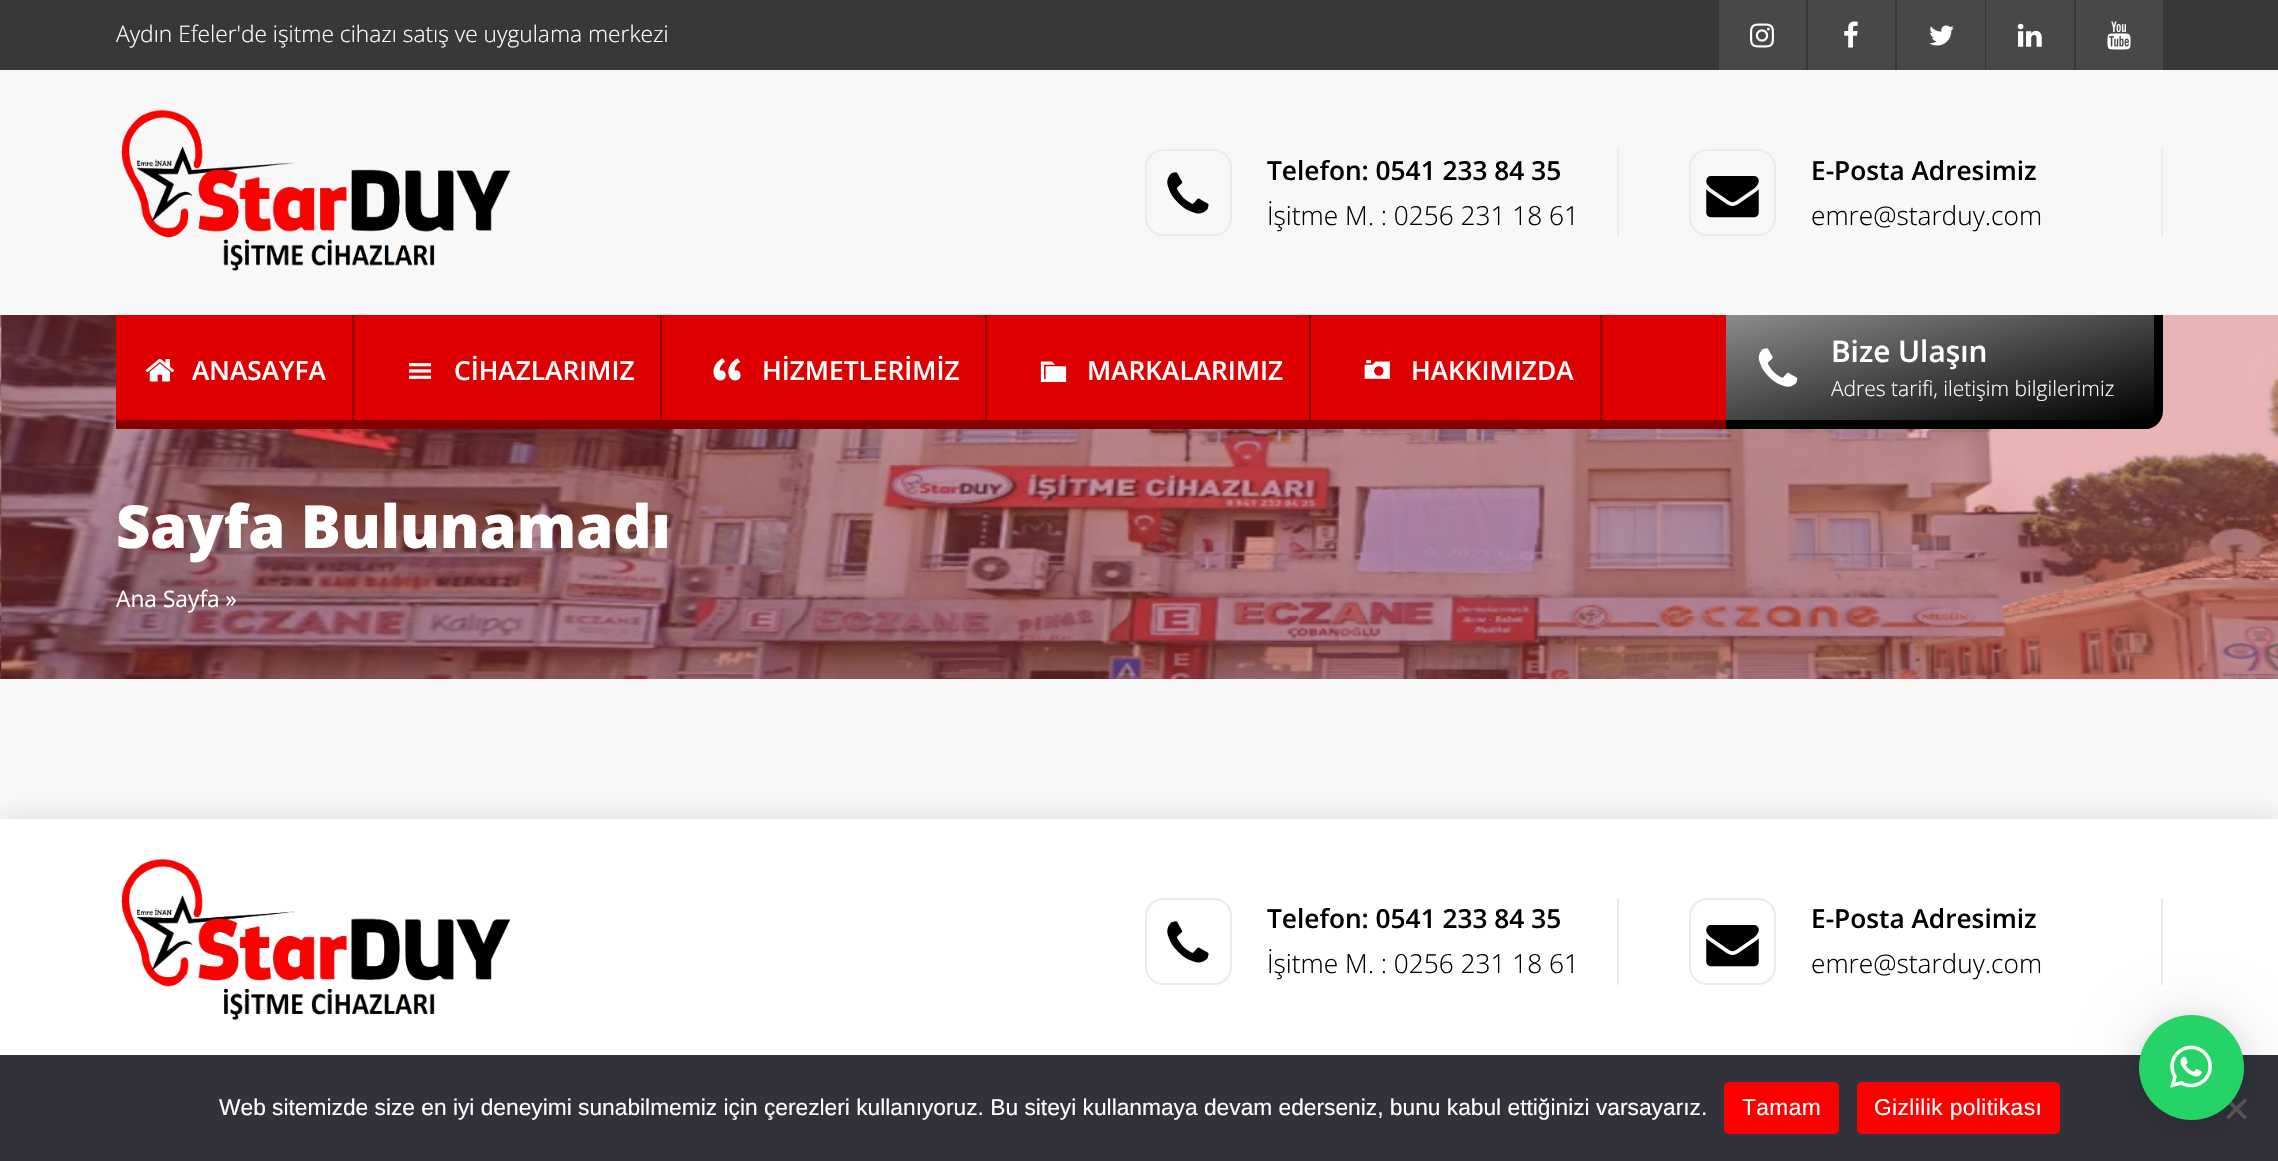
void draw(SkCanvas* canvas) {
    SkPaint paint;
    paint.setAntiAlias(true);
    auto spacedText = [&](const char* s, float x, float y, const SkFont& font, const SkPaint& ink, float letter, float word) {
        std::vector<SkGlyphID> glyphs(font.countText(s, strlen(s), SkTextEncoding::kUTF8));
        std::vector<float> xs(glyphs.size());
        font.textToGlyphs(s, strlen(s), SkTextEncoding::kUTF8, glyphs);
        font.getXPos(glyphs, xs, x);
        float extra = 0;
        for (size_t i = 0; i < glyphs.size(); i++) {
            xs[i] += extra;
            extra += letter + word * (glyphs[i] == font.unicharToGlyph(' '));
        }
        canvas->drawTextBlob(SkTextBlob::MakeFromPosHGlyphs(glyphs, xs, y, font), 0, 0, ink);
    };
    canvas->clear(0xFFF8F8F8);
    paint.setColor(0xFF383838);
    canvas->drawRect(SkRect::MakeXYWH(0, 0, 2278, 70), paint);
    SkFont font1(fontMgr->matchFamilyStyle("Open Sans", SkFontStyle(300, SkFontStyle::kNormal_Width, SkFontStyle::kUpright_Slant)), 22.75f);
    font1.setSubpixel(true);
    paint.setColor(0xFFFFFFFF);
    canvas->drawString("Aydın Efeler'de işitme cihazı satış ve uygulama merkezi", 116, 42, font1, paint);
    paint.setColor(0xFF484848);
    canvas->drawRect(SkRect::MakeXYWH(1719, 0, 87, 70), paint);
    canvas->drawImageRect(SkImages::DeferredFromEncodedData(SkData::MakeFromFileName("img1.png")), SkRect::MakeXYWH(1750, 23, 24, 25), SkSamplingOptions());
    canvas->drawRect(SkRect::MakeXYWH(1808, 0, 87, 70), paint);
    canvas->drawImageRect(SkImages::DeferredFromEncodedData(SkData::MakeFromFileName("img2.png")), SkRect::MakeXYWH(1844, 21, 14, 27), SkSamplingOptions());
    canvas->drawRect(SkRect::MakeXYWH(1897, 0, 88, 70), paint);
    canvas->drawImageRect(SkImages::DeferredFromEncodedData(SkData::MakeFromFileName("img3.png")), SkRect::MakeXYWH(1929, 25, 25, 21), SkSamplingOptions());
    canvas->drawRect(SkRect::MakeXYWH(1986, 0, 88, 70), paint);
    canvas->drawImageRect(SkImages::DeferredFromEncodedData(SkData::MakeFromFileName("img4.png")), SkRect::MakeXYWH(2017, 23, 25, 24), SkSamplingOptions());
    canvas->drawRect(SkRect::MakeXYWH(2076, 0, 87, 70), paint);
    canvas->drawImageRect(SkImages::DeferredFromEncodedData(SkData::MakeFromFileName("img5.png")), SkRect::MakeXYWH(2107, 21, 24, 29), SkSamplingOptions());
    canvas->drawImageRect(SkImages::DeferredFromEncodedData(SkData::MakeFromFileName("img6.png")), SkRect::MakeXYWH(121, 109, 390, 162), SkSamplingOptions());
    paint.setColor(0xFFEBEBEB);
    canvas->drawRect(SkRect::MakeXYWH(1617, 149, 2, 87), paint);
    paint.setStyle(SkPaint::kStroke_Style);
    paint.setStrokeWidth(2);
    canvas->drawRoundRect(SkRect::MakeXYWH(1146, 150, 85, 85), 17, 17, paint);
    canvas->drawImageRect(SkImages::DeferredFromEncodedData(SkData::MakeFromFileName("img7.png")), SkRect::MakeXYWH(1167, 172, 42, 42), SkSamplingOptions());
    SkFont font2(fontMgr->matchFamilyStyle("Open Sans", SkFontStyle(600, SkFontStyle::kNormal_Width, SkFontStyle::kUpright_Slant)), 26.25f);
    font2.setSubpixel(true);
    paint.setStyle(SkPaint::kFill_Style);
    paint.setColor(0xFF000000);
    canvas->drawString("Telefon: 0541 233 84 35", 1267, 180, font2, paint);
    SkFont font3(fontMgr->matchFamilyStyle("Open Sans", SkFontStyle(300, SkFontStyle::kNormal_Width, SkFontStyle::kUpright_Slant)), 26.25f);
    font3.setSubpixel(true);
    canvas->drawString("İşitme M. : 0256 231 18 61", 1267, 225, font3, paint);
    paint.setColor(0xFFEBEBEB);
    canvas->drawRect(SkRect::MakeXYWH(2161, 149, 2, 87), paint);
    paint.setStyle(SkPaint::kStroke_Style);
    canvas->drawRoundRect(SkRect::MakeXYWH(1690, 150, 85, 85), 17, 17, paint);
    canvas->drawImageRect(SkImages::DeferredFromEncodedData(SkData::MakeFromFileName("img8.png")), SkRect::MakeXYWH(1706, 176, 53, 42), SkSamplingOptions());
    paint.setStyle(SkPaint::kFill_Style);
    paint.setColor(0xFF000000);
    canvas->drawString("E-Posta Adresimiz", 1811, 180, font2, paint);
    canvas->drawString("emre@starduy.com", 1811, 225, font3, paint);
    paint.setColor(0xFFC94646);
    canvas->drawRect(SkRect::MakeXYWH(0, 315, 2278, 364), paint);
    canvas->drawImageRect(SkImages::DeferredFromEncodedData(SkData::MakeFromFileName("img15.png")), SkRect::MakeXYWH(0, 315, 2278, 364), SkSamplingOptions());
    paint.setColor(0xFFDE0000);
    canvas->drawRect(SkRect::MakeXYWH(116, 315, 1610, 105), paint);
    paint.setColor(0xFF850000);
    canvas->drawRect(SkRect::MakeXYWH(116, 420, 1610, 9), paint);
    canvas->drawRect(SkRect::MakeXYWH(352, 315, 2, 105), paint);
    canvas->drawImageRect(SkImages::DeferredFromEncodedData(SkData::MakeFromFileName("img9.png")), SkRect::MakeXYWH(145, 359, 29, 23), SkSamplingOptions());
    paint.setColor(0xFFFFFFFF);
    canvas->drawString("ANASAYFA", 192, 380, font2, paint);
    paint.setColor(0xFF850000);
    canvas->drawRect(SkRect::MakeXYWH(660, 315, 2, 105), paint);
    canvas->drawImageRect(SkImages::DeferredFromEncodedData(SkData::MakeFromFileName("img10.png")), SkRect::MakeXYWH(409, 363, 22, 16), SkSamplingOptions());
    paint.setColor(0xFFFFFFFF);
    canvas->drawString("CİHAZLARIMIZ", 454, 380, font2, paint);
    paint.setColor(0xFF850000);
    canvas->drawRect(SkRect::MakeXYWH(985, 315, 2, 105), paint);
    canvas->drawImageRect(SkImages::DeferredFromEncodedData(SkData::MakeFromFileName("img11.png")), SkRect::MakeXYWH(713, 358, 28, 23), SkSamplingOptions());
    paint.setColor(0xFFFFFFFF);
    canvas->drawString("HİZMETLERİMİZ", 762, 380, font2, paint);
    paint.setColor(0xFF850000);
    canvas->drawRect(SkRect::MakeXYWH(1309, 315, 2, 105), paint);
    canvas->drawImageRect(SkImages::DeferredFromEncodedData(SkData::MakeFromFileName("img12.png")), SkRect::MakeXYWH(1040, 361, 27, 21), SkSamplingOptions());
    paint.setColor(0xFFFFFFFF);
    canvas->drawString("MARKALARIMIZ", 1087, 380, font2, paint);
    paint.setColor(0xFF850000);
    canvas->drawRect(SkRect::MakeXYWH(1600, 315, 2, 105), paint);
    canvas->drawImageRect(SkImages::DeferredFromEncodedData(SkData::MakeFromFileName("img13.png")), SkRect::MakeXYWH(1364, 360, 26, 19), SkSamplingOptions());
    paint.setColor(0xFFFFFFFF);
    canvas->drawString("HAKKIMIZDA", 1411, 380, font2, paint);
    {
        const SkColor colors[] = {0xFF8C8C8C, 0xFF000000};
        const float stops[] = {0, 1};
        const SkPoint ends[] = {{1916, 268}, {1964, 467}};
        paint.setShader(SkGradientShader::MakeLinear(ends, colors, stops, 2, SkTileMode::kClamp));
        paint.setAlpha(255);
    }
    canvas->drawRect(SkRect::MakeXYWH(1726, 315, 428, 105), paint);
    paint.setShader(nullptr);
    paint.setColor(0xFF000000);
    canvas->drawPath(SkPathBuilder(SkPathFillType::kEvenOdd).moveTo(1726, 315).lineTo(2163, 315).lineTo(2163, 411).cubicTo(2163, 421, 2155, 429, 2146, 429).lineTo(1726, 429).close().moveTo(1726, 315).lineTo(2154, 315).lineTo(2154, 411).cubicTo(2154, 416, 2150, 420, 2146, 420).lineTo(1726, 420).close().detach(), paint);
    canvas->drawImageRect(SkImages::DeferredFromEncodedData(SkData::MakeFromFileName("img14.png")), SkRect::MakeXYWH(1758, 348, 40, 39), SkSamplingOptions());
    SkFont font4(fontMgr->matchFamilyStyle("Open Sans", SkFontStyle(600, SkFontStyle::kNormal_Width, SkFontStyle::kUpright_Slant)), 29.75f);
    font4.setSubpixel(true);
    paint.setColor(0xFFFFFFFF);
    canvas->drawString("Bize Ulaşın", 1831, 362, font4, paint);
    SkFont font5(fontMgr->matchFamilyStyle("Open Sans", SkFontStyle(300, SkFontStyle::kNormal_Width, SkFontStyle::kUpright_Slant)), 21);
    font5.setSubpixel(true);
    canvas->drawString("Adres tarifi, iletişim bilgilerimiz", 1831, 396, font5, paint);
    SkFont font6(fontMgr->matchFamilyStyle("Open Sans", SkFontStyle(800, SkFontStyle::kNormal_Width, SkFontStyle::kUpright_Slant)), 59.5f);
    font6.setSubpixel(true);
    canvas->drawString("Sayfa Bulunamadı", 116, 548, font6, paint);
    SkFont font7(fontMgr->matchFamilyStyle("Open Sans", SkFontStyle::Normal()), 22.75f);
    font7.setSubpixel(true);
    canvas->drawString("Ana Sayfa »", 116, 607, font7, paint);
    paint.setColor(0x80BABABA);
    paint.setMaskFilter(SkMaskFilter::MakeBlur(kNormal_SkBlurStyle, 13));
    canvas->drawRect(SkRect::MakeXYWH(0, 819, 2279, 315), paint);
    paint.setMaskFilter(nullptr);
    paint.setColor(0xFFFFFFFF);
    canvas->drawRect(SkRect::MakeXYWH(0, 819, 2278, 236), paint);
    canvas->drawImageRect(SkImages::DeferredFromEncodedData(SkData::MakeFromFileName("img16.png")), SkRect::MakeXYWH(121, 858, 390, 162), SkSamplingOptions());
    paint.setColor(0xFFEBEBEB);
    canvas->drawRect(SkRect::MakeXYWH(1617, 898, 2, 87), paint);
    paint.setStyle(SkPaint::kStroke_Style);
    canvas->drawRoundRect(SkRect::MakeXYWH(1146, 899, 85, 85), 17, 17, paint);
    canvas->drawImageRect(SkImages::DeferredFromEncodedData(SkData::MakeFromFileName("img17.png")), SkRect::MakeXYWH(1167, 921, 42, 42), SkSamplingOptions());
    paint.setStyle(SkPaint::kFill_Style);
    paint.setColor(0xFF000000);
    canvas->drawString("Telefon: 0541 233 84 35", 1267, 928, font2, paint);
    canvas->drawString("İşitme M. : 0256 231 18 61", 1267, 973, font3, paint);
    paint.setColor(0xFFEBEBEB);
    canvas->drawRect(SkRect::MakeXYWH(2161, 898, 2, 87), paint);
    paint.setStyle(SkPaint::kStroke_Style);
    canvas->drawRoundRect(SkRect::MakeXYWH(1690, 899, 85, 85), 17, 17, paint);
    canvas->drawImageRect(SkImages::DeferredFromEncodedData(SkData::MakeFromFileName("img18.png")), SkRect::MakeXYWH(1706, 925, 53, 42), SkSamplingOptions());
    paint.setStyle(SkPaint::kFill_Style);
    paint.setColor(0xFF000000);
    canvas->drawString("E-Posta Adresimiz", 1811, 928, font2, paint);
    canvas->drawString("emre@starduy.com", 1811, 973, font3, paint);
    paint.setColor(0xFF32323A);
    canvas->drawRect(SkRect::MakeXYWH(0, 1055, 2278, 106), paint);
    paint.setColor(0xFFFF0000);
    canvas->drawRoundRect(SkRect::MakeXYWH(1857, 1082, 203, 52), 5, 5, paint);
    paint.setColor(0xFF59595D);
    canvas->drawPath(SkPathBuilder().moveTo(2244.5f, 1098.5f).lineTo(2247, 1101).lineTo(2228.5f, 1119.5f).lineTo(2226, 1117).close().detach(), paint);
    canvas->drawPath(SkPathBuilder().moveTo(2226, 1101).lineTo(2228.5f, 1098.5f).lineTo(2247, 1117).lineTo(2244.5f, 1119.5f).close().detach(), paint);
    paint.setColor(0x29000000);
    paint.setMaskFilter(SkMaskFilter::MakeBlur(kNormal_SkBlurStyle, 28));
    canvas->drawRoundRect(SkRect::MakeXYWH(2139, 1019, 105, 105), 52.5f, 52.5f, paint);
    paint.setMaskFilter(nullptr);
    paint.setColor(0x0F000000);
    paint.setMaskFilter(SkMaskFilter::MakeBlur(kNormal_SkBlurStyle, 5));
    canvas->drawRoundRect(SkRect::MakeXYWH(2139, 1017, 105, 105), 52.5f, 52.5f, paint);
    paint.setMaskFilter(nullptr);
    paint.setColor(0xFF25D366);
    canvas->drawCircle(2191.5f, 1067.5f, 52.5f, paint);
    canvas->drawImageRect(SkImages::DeferredFromEncodedData(SkData::MakeFromFileName("img19.png")), SkRect::MakeXYWH(2170, 1045, 42, 43), SkSamplingOptions());
    SkFont font8(fontMgr->matchFamilyStyle("Liberation Sans", SkFontStyle::Normal()), 22.75f);
    font8.setSubpixel(true);
    paint.setColor(0xFFFFFFFF);
    canvas->drawString("Web sitemizde size en iyi deneyimi sunabilmemiz için çerezleri kullanıyoruz. Bu siteyi kullanmaya devam ederseniz, bunu kabul ettiğinizi varsayarız.", 219, 1115, font8, paint);
    paint.setColor(0xFFFF0000);
    canvas->drawRoundRect(SkRect::MakeXYWH(1724, 1082, 115, 52), 5, 5, paint);
    paint.setColor(0xFFFFFFFF);
    spacedText("Tamam", 1742, 1115, font8, paint, 0.4f, 0);
    spacedText("Gizlilik politikası", 1874, 1115, font8, paint, 0.4f, 0);
}
